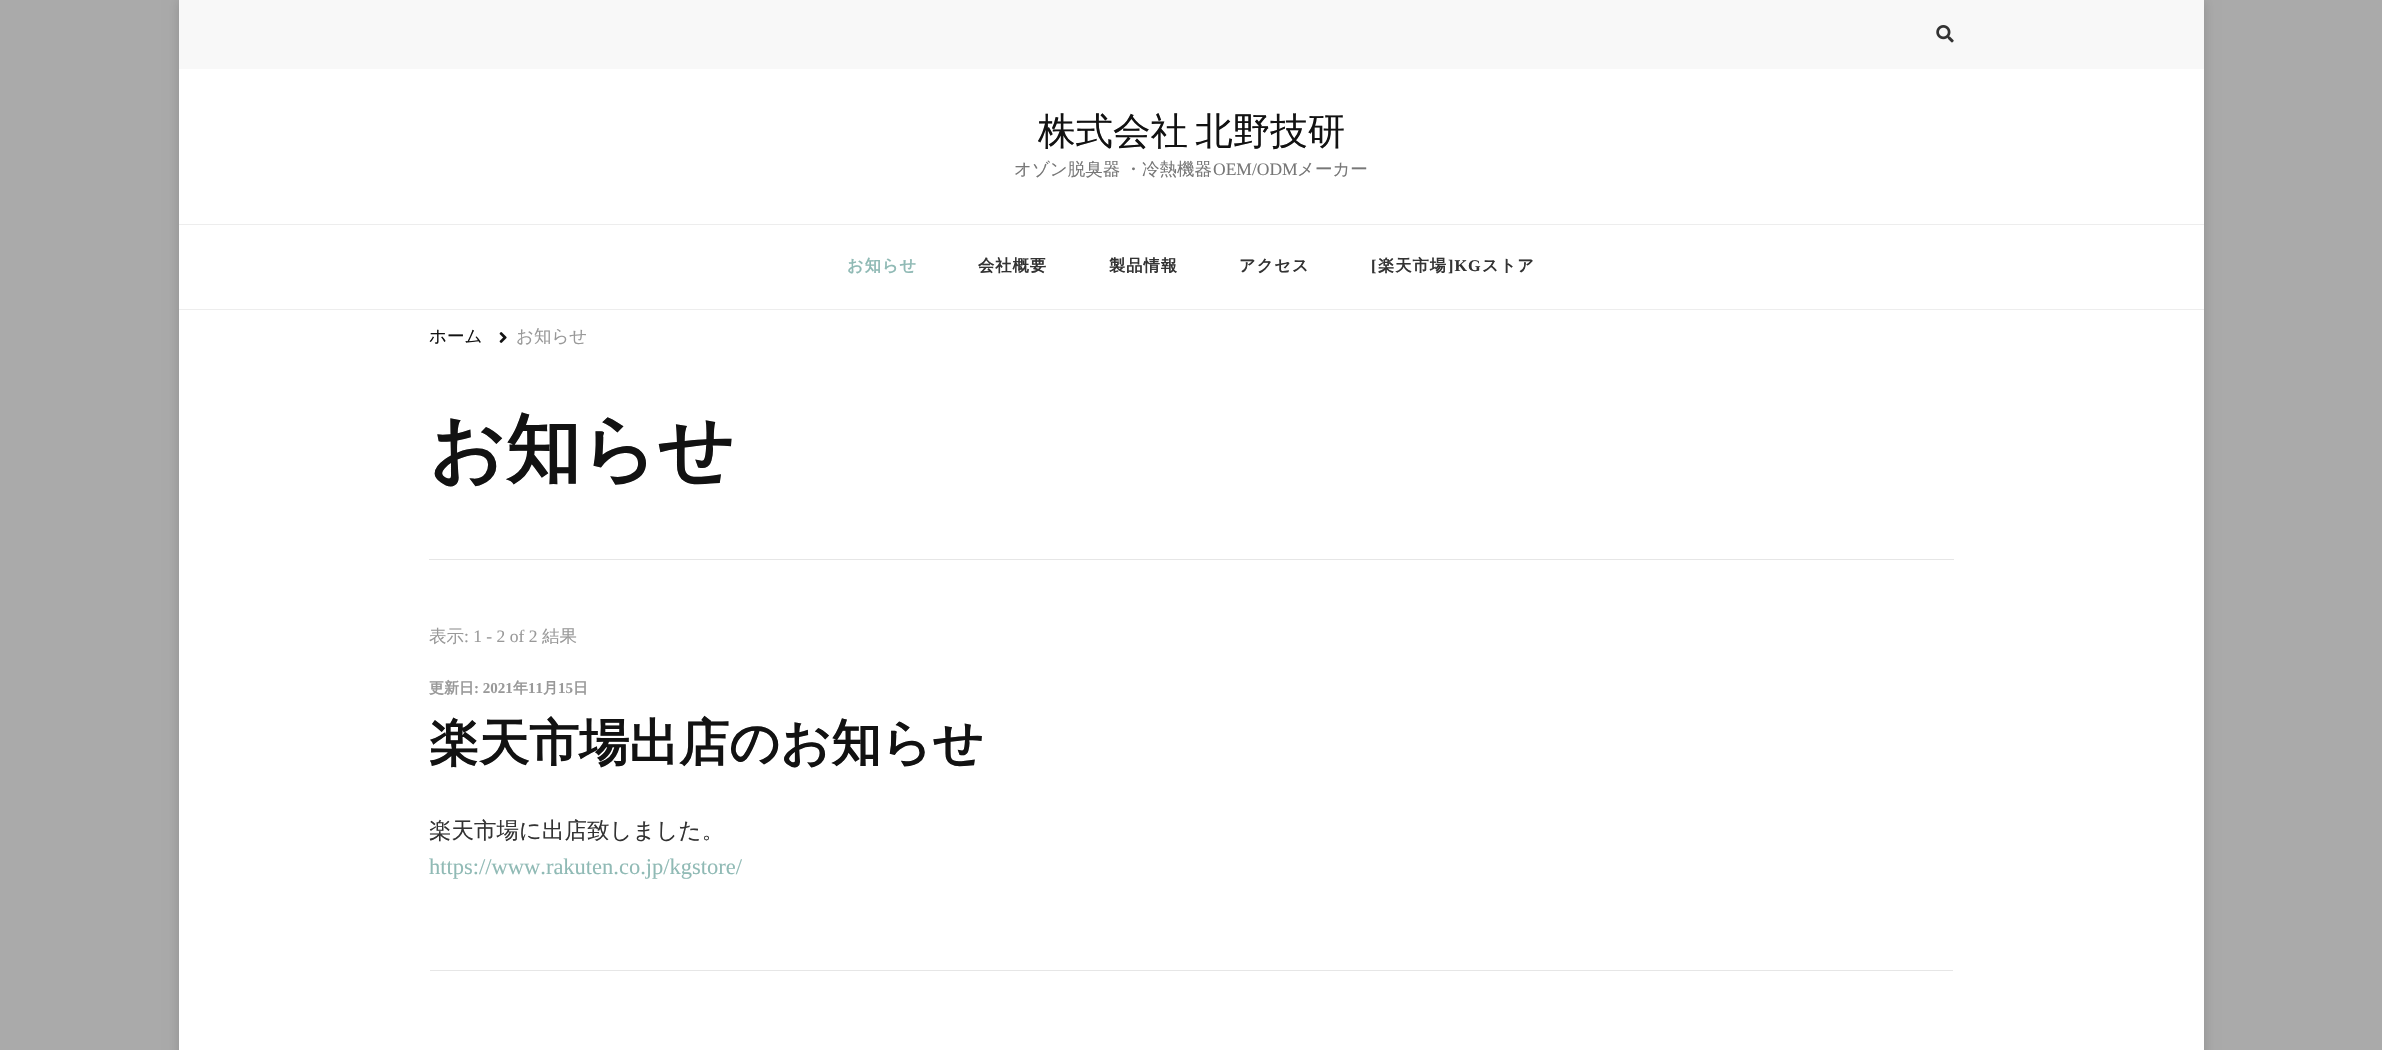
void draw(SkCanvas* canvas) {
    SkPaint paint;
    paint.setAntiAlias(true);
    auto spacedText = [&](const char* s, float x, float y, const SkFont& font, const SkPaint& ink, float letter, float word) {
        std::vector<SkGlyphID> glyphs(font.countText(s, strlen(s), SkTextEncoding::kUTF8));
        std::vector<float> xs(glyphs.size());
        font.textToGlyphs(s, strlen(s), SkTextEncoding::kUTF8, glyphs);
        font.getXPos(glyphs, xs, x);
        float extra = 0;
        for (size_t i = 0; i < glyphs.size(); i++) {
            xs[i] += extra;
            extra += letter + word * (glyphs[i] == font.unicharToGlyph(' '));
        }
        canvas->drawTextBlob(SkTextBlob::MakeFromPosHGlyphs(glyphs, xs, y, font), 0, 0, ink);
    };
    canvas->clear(0xFFAAAAAA);
    paint.setColor(0x29000000);
    paint.setMaskFilter(SkMaskFilter::MakeBlur(kNormal_SkBlurStyle, 6));
    canvas->drawRect(SkRect::MakeXYWH(179, 0, 2025, 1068), paint);
    paint.setMaskFilter(nullptr);
    paint.setColor(0xFFFFFFFF);
    canvas->drawRect(SkRect::MakeXYWH(179, 69, 2025, 981), paint);
    paint.setColor(0xFFF8F8F8);
    canvas->drawRect(SkRect::MakeXYWH(179, 0, 2025, 69), paint);
    canvas->drawImageRect(SkImages::DeferredFromEncodedData(SkData::MakeFromFileName("img1.png")), SkRect::MakeXYWH(1936, 25, 18, 18), SkSamplingOptions());
    SkFont font1(fontMgr->matchFamilyStyle("WenQuanYi Zen Hei", SkFontStyle(500, SkFontStyle::kNormal_Width, SkFontStyle::kUpright_Slant)), 37.5f);
    font1.setSubpixel(true);
    paint.setColor(0xFF121212);
    spacedText("株式会社 北野技研", 1038, 144, font1, paint, 0, -4);
    SkFont font2(fontMgr->matchFamilyStyle("WenQuanYi Zen Hei", SkFontStyle(500, SkFontStyle::kNormal_Width, SkFontStyle::kUpright_Slant)), 17.5f);
    font2.setSubpixel(true);
    paint.setColor(0xFF777777);
    spacedText("オゾン脱臭器 ・冷熱機器", 1014, 175, font2, paint, 0, -1);
    SkFont font3(fontMgr->matchFamilyStyle("Liberation Serif", SkFontStyle::Normal()), 17.5f);
    font3.setSubpixel(true);
    canvas->drawString("OEM/ODM", 1213, 175, font3, paint);
    canvas->drawString("メーカー", 1297, 175, font2, paint);
    paint.setColor(0xFFEDEDED);
    canvas->drawRect(SkRect::MakeXYWH(179, 224, 2025, 1), paint);
    canvas->drawRect(SkRect::MakeXYWH(179, 309, 2025, 1), paint);
    SkFont font4(fontMgr->matchFamilyStyle("WenQuanYi Zen Hei", SkFontStyle::Bold()), 16.25f);
    font4.setSubpixel(true);
    paint.setColor(0xFF90BAB5);
    spacedText("お知らせ", 847, 271, font4, paint, 1, 0);
    paint.setColor(0xFF333333);
    spacedText("会社概要", 978, 271, font4, paint, 1, 0);
    spacedText("製品情報", 1109, 271, font4, paint, 1, 0);
    spacedText("アクセス", 1239, 271, font4, paint, 1, 0);
    SkFont font5(fontMgr->matchFamilyStyle("Liberation Serif", SkFontStyle::Bold()), 16.25f);
    font5.setSubpixel(true);
    spacedText("[", 1371, 271, font5, paint, 1, 0);
    spacedText("楽天市場", 1378, 271, font4, paint, 1, 0);
    spacedText("]KG", 1448, 271, font5, paint, 1, 0);
    spacedText("ストア", 1482, 271, font4, paint, 1, 0);
    paint.setColor(0xFF121212);
    canvas->drawString("ホーム", 429, 342, font2, paint);
    canvas->drawImageRect(SkImages::DeferredFromEncodedData(SkData::MakeFromFileName("img2.png")), SkRect::MakeXYWH(499, 332, 8, 11), SkSamplingOptions());
    paint.setColor(0xFF999999);
    canvas->drawString("お知らせ", 516, 342, font2, paint);
    paint.setColor(0xFFE6E6E6);
    canvas->drawRect(SkRect::MakeXYWH(429, 559, 1525, 1), paint);
    SkFont font6(fontMgr->matchFamilyStyle("WenQuanYi Zen Hei", SkFontStyle::Bold()), 75);
    font6.setSubpixel(true);
    paint.setColor(0xFF121212);
    canvas->drawString("お知らせ", 429, 475, font6, paint);
    paint.setColor(0xFF999999);
    canvas->drawString("表示", 429, 642, font2, paint);
    canvas->drawString(": 1 - 2 of 2", 464, 642, font3, paint);
    canvas->drawString("結果", 542, 642, font2, paint);
    paint.setColor(0xFFE6E6E6);
    canvas->drawRect(SkRect::MakeXYWH(430, 970, 1523, 1), paint);
    SkFont font7(fontMgr->matchFamilyStyle("WenQuanYi Zen Hei", SkFontStyle::Bold()), 15);
    font7.setSubpixel(true);
    paint.setColor(0xFF999999);
    canvas->drawString("更新日", 429, 693, font7, paint);
    SkFont font8(fontMgr->matchFamilyStyle("Liberation Serif", SkFontStyle::Bold()), 15);
    font8.setSubpixel(true);
    canvas->drawString(": 2021", 474, 693, font8, paint);
    canvas->drawString("年", 513, 693, font7, paint);
    canvas->drawString("11", 528, 693, font8, paint);
    canvas->drawString("月", 543, 693, font7, paint);
    canvas->drawString("15", 558, 693, font8, paint);
    canvas->drawString("日", 573, 693, font7, paint);
    SkFont font9(fontMgr->matchFamilyStyle("WenQuanYi Zen Hei", SkFontStyle::Bold()), 50);
    font9.setSubpixel(true);
    paint.setColor(0xFF121212);
    canvas->drawString("楽天市場出店のお知らせ", 429, 760, font9, paint);
    SkFont font10(fontMgr->matchFamilyStyle("WenQuanYi Zen Hei", SkFontStyle(500, SkFontStyle::kNormal_Width, SkFontStyle::kUpright_Slant)), 22.5f);
    font10.setSubpixel(true);
    paint.setColor(0xFF333333);
    canvas->drawString("楽天市場に出店致しました。", 429, 838, font10, paint);
    SkFont font11(fontMgr->matchFamilyStyle("Liberation Serif", SkFontStyle::Normal()), 22.5f);
    font11.setSubpixel(true);
    paint.setColor(0xFF90BAB5);
    canvas->drawString("https://www.rakuten.co.jp/kgstore/", 429, 874, font11, paint);
}
